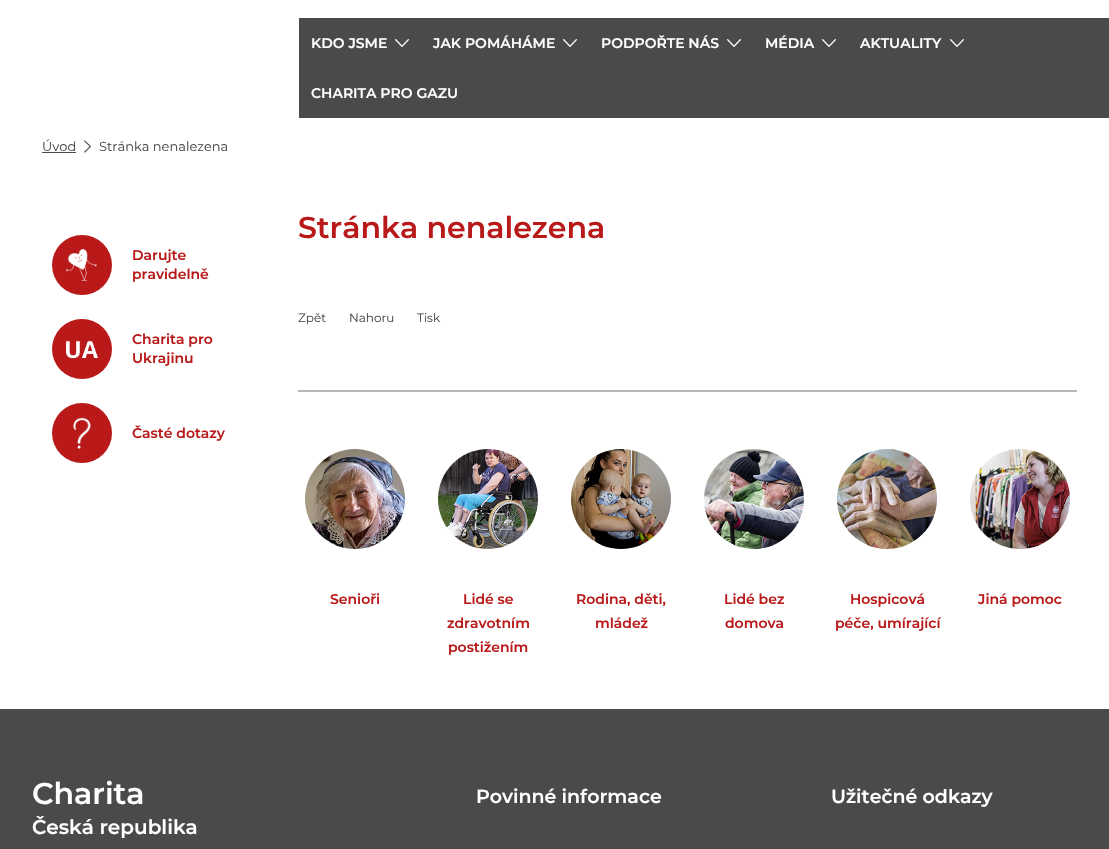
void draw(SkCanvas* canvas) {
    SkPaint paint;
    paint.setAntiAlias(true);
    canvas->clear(0xFFFFFFFF);
    paint.setColor(0xFF4A4A4A);
    canvas->drawRect(SkRect::MakeXYWH(299, 18, 810, 100), paint);
    SkFont font1(fontMgr->matchFamilyStyle("Montserrat", SkFontStyle(600, SkFontStyle::kNormal_Width, SkFontStyle::kUpright_Slant)), 14);
    font1.setSubpixel(true);
    paint.setColor(0xFFFFFFFF);
    canvas->drawString("KDO JSME", 311, 48, font1, paint);
    canvas->drawImageRect(SkImages::DeferredFromEncodedData(SkData::MakeFromFileName("img1.png")), SkRect::MakeXYWH(395, 39, 14, 8), SkSamplingOptions());
    canvas->drawString("JAK POMÁHÁME", 433, 48, font1, paint);
    canvas->drawImageRect(SkImages::DeferredFromEncodedData(SkData::MakeFromFileName("img1.png")), SkRect::MakeXYWH(563, 39, 14, 8), SkSamplingOptions());
    canvas->drawString("PODPOŘTE NÁS", 601, 48, font1, paint);
    canvas->drawImageRect(SkImages::DeferredFromEncodedData(SkData::MakeFromFileName("img1.png")), SkRect::MakeXYWH(727, 39, 14, 8), SkSamplingOptions());
    canvas->drawString("MÉDIA", 765, 48, font1, paint);
    canvas->drawImageRect(SkImages::DeferredFromEncodedData(SkData::MakeFromFileName("img1.png")), SkRect::MakeXYWH(822, 39, 14, 8), SkSamplingOptions());
    canvas->drawString("AKTUALITY", 860, 48, font1, paint);
    canvas->drawImageRect(SkImages::DeferredFromEncodedData(SkData::MakeFromFileName("img1.png")), SkRect::MakeXYWH(950, 39, 14, 8), SkSamplingOptions());
    canvas->drawString("CHARITA PRO GAZU", 311, 98, font1, paint);
    SkFont font2(fontMgr->matchFamilyStyle("Montserrat", SkFontStyle::Normal()), 13);
    font2.setSubpixel(true);
    paint.setColor(0xFF4A4A4A);
    canvas->drawString("Úvod", 42, 151, font2, paint);
    canvas->drawRect(SkRect::MakeXYWH(42, 152, 34, 1), paint);
    canvas->drawImageRect(SkImages::DeferredFromEncodedData(SkData::MakeFromFileName("img2.png")), SkRect::MakeXYWH(84, 140, 7, 13), SkSamplingOptions());
    canvas->drawString("Stránka nenalezena", 99, 151, font2, paint);
    paint.setColor(0xFFB91919);
    canvas->drawCircle(82, 265, 30, paint);
    canvas->drawImageRect(SkImages::DeferredFromEncodedData(SkData::MakeFromFileName("img3.png")), SkRect::MakeXYWH(66, 249, 31, 32), SkSamplingOptions());
    canvas->drawString("Darujte", 132, 260, font1, paint);
    canvas->drawString("pravidelně", 132, 279, font1, paint);
    canvas->drawCircle(82, 349, 30, paint);
    canvas->drawImageRect(SkImages::DeferredFromEncodedData(SkData::MakeFromFileName("img4.png")), SkRect::MakeXYWH(66, 340, 32, 19), SkSamplingOptions());
    canvas->drawString("Charita pro", 132, 344, font1, paint);
    canvas->drawString("Ukrajinu", 132, 363, font1, paint);
    canvas->drawCircle(82, 433, 30, paint);
    canvas->drawImageRect(SkImages::DeferredFromEncodedData(SkData::MakeFromFileName("img5.png")), SkRect::MakeXYWH(73, 417, 18, 32), SkSamplingOptions());
    canvas->drawString("Časté dotazy", 132, 438, font1, paint);
    SkFont font3(fontMgr->matchFamilyStyle("Montserrat", SkFontStyle(600, SkFontStyle::kNormal_Width, SkFontStyle::kUpright_Slant)), 30);
    font3.setSubpixel(true);
    canvas->drawString("Stránka nenalezena", 298, 238, font3, paint);
    SkFont font4(fontMgr->matchFamilyStyle("Montserrat", SkFontStyle::Normal()), 12);
    font4.setSubpixel(true);
    paint.setColor(0xFF4A4A4A);
    canvas->drawString("Zpět", 298, 322, font4, paint);
    canvas->drawString("Nahoru", 349, 322, font4, paint);
    canvas->drawString("Tisk", 417, 322, font4, paint);
    paint.setColor(0xFFB7B7B7);
    canvas->drawRect(SkRect::MakeXYWH(298, 390, 779, 2), paint);
    canvas->drawImageRect(SkImages::DeferredFromEncodedData(SkData::MakeFromFileName("img6.png")), SkRect::MakeXYWH(305, 449, 100, 100), SkSamplingOptions());
    paint.setColor(0xFFB91919);
    canvas->drawString("Senioři", 330, 604, font1, paint);
    canvas->drawImageRect(SkImages::DeferredFromEncodedData(SkData::MakeFromFileName("img7.png")), SkRect::MakeXYWH(438, 449, 100, 100), SkSamplingOptions());
    canvas->drawString("Lidé se", 463, 604, font1, paint);
    canvas->drawString("zdravotním", 447, 628, font1, paint);
    canvas->drawString("postižením", 448, 652, font1, paint);
    canvas->drawImageRect(SkImages::DeferredFromEncodedData(SkData::MakeFromFileName("img8.png")), SkRect::MakeXYWH(571, 449, 100, 100), SkSamplingOptions());
    canvas->drawString("Rodina, děti,", 576, 604, font1, paint);
    canvas->drawString("mládež", 595, 628, font1, paint);
    canvas->drawImageRect(SkImages::DeferredFromEncodedData(SkData::MakeFromFileName("img9.png")), SkRect::MakeXYWH(704, 449, 100, 100), SkSamplingOptions());
    canvas->drawString("Lidé bez", 724, 604, font1, paint);
    canvas->drawString("domova", 725, 628, font1, paint);
    canvas->drawImageRect(SkImages::DeferredFromEncodedData(SkData::MakeFromFileName("img10.png")), SkRect::MakeXYWH(837, 449, 100, 100), SkSamplingOptions());
    canvas->drawString("Hospicová", 850, 604, font1, paint);
    canvas->drawString("péče, umírající", 835, 628, font1, paint);
    canvas->drawImageRect(SkImages::DeferredFromEncodedData(SkData::MakeFromFileName("img11.png")), SkRect::MakeXYWH(970, 449, 100, 100), SkSamplingOptions());
    canvas->drawString("Jiná pomoc", 978, 604, font1, paint);
    paint.setColor(0xFF4A4A4A);
    canvas->drawRect(SkRect::MakeXYWH(0, 709, 1109, 140), paint);
    paint.setColor(0xFFFFFFFF);
    canvas->drawString("Charita", 32, 804, font3, paint);
    SkFont font5(fontMgr->matchFamilyStyle("Montserrat", SkFontStyle(600, SkFontStyle::kNormal_Width, SkFontStyle::kUpright_Slant)), 20);
    font5.setSubpixel(true);
    canvas->drawString("Česká republika", 32, 834, font5, paint);
    SkFont font6(fontMgr->matchFamilyStyle("Montserrat", SkFontStyle(600, SkFontStyle::kNormal_Width, SkFontStyle::kUpright_Slant)), 19);
    font6.setSubpixel(true);
    canvas->drawString("Povinné informace", 476, 803, font6, paint);
    canvas->drawString("Užitečné odkazy", 831, 803, font6, paint);
}
